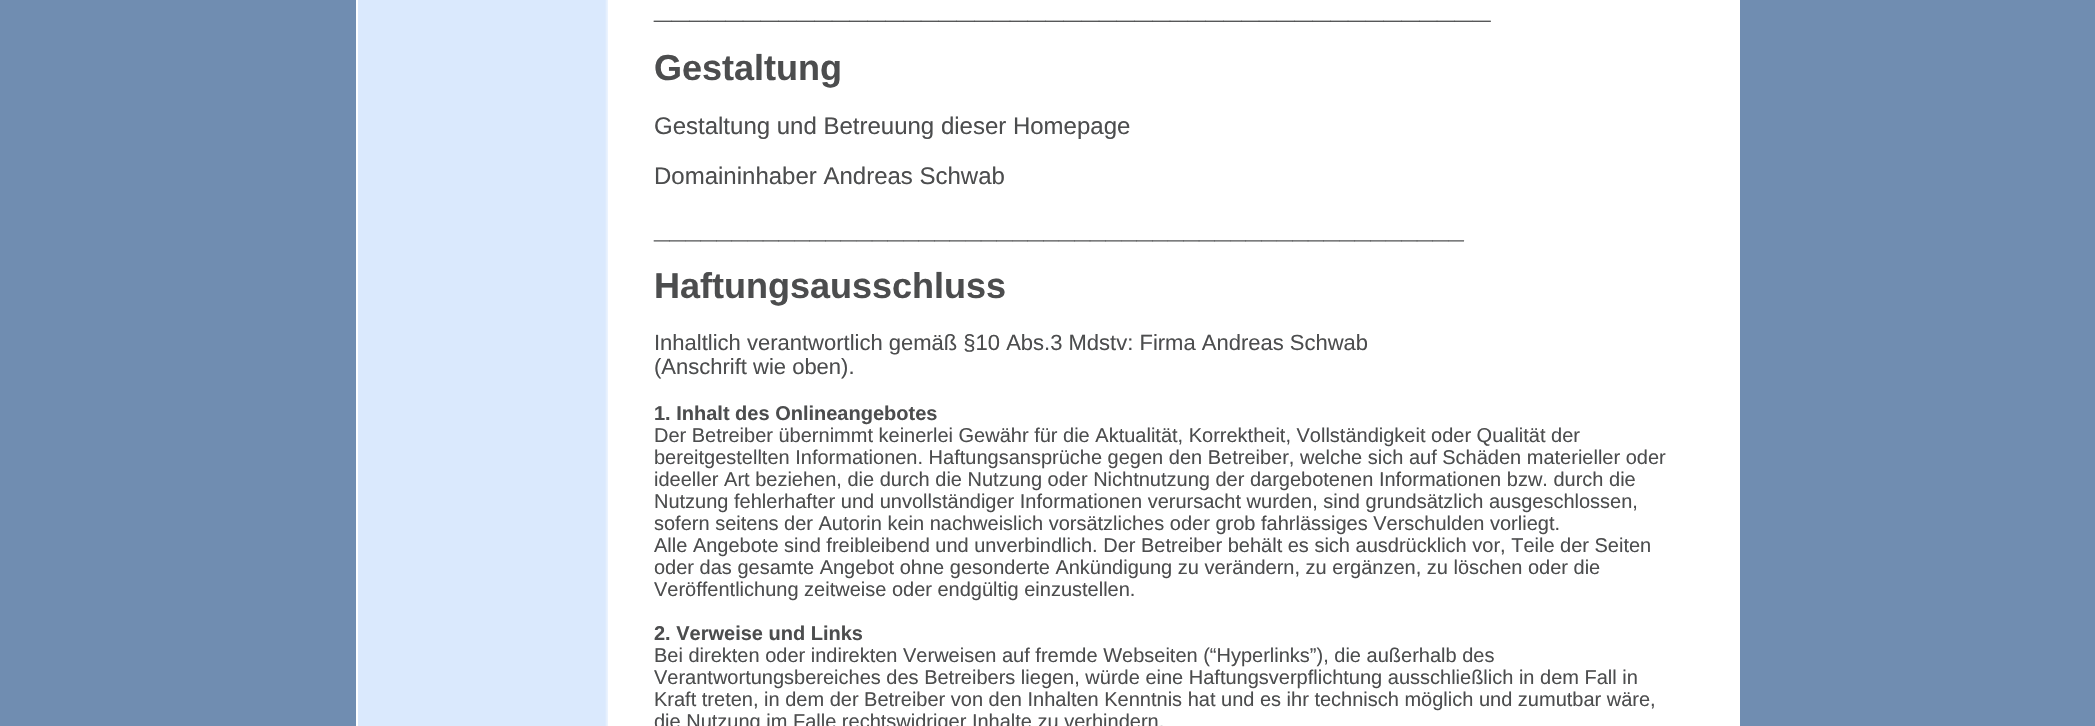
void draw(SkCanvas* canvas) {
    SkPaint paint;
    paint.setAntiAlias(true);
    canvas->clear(0xFF708DB1);
    paint.setColor(0xFFFFFFFF);
    canvas->drawRect(SkRect::MakeXYWH(356, 0, 1384, 726), paint);
    canvas->drawImageRect(SkImages::DeferredFromEncodedData(SkData::MakeFromFileName("img1.png")), SkRect::MakeXYWH(358, 0, 250, 726), SkSamplingOptions());
    SkFont font1(fontMgr->matchFamilyStyle("Liberation Sans", SkFontStyle::Bold()), 32);
    font1.setSubpixel(true);
    paint.setColor(0xFF4C4D4E);
    canvas->drawString("_______________________________________________", 654, 18, font1, paint);
    SkFont font2(fontMgr->matchFamilyStyle("Liberation Sans", SkFontStyle::Bold()), 36);
    font2.setSubpixel(true);
    canvas->drawString("Gestaltung", 654, 80, font2, paint);
    SkFont font3(fontMgr->matchFamilyStyle("Liberation Sans", SkFontStyle::Normal()), 24);
    font3.setSubpixel(true);
    canvas->drawString("Gestaltung und Betreuung dieser Homepage", 654, 134, font3, paint);
    canvas->drawString("Domaininhaber Andreas Schwab", 654, 184, font3, paint);
    SkFont font4(fontMgr->matchFamilyStyle("Liberation Sans", SkFontStyle::Bold()), 28);
    font4.setSubpixel(true);
    canvas->drawString("____________________________________________________", 654, 238, font4, paint);
    canvas->drawString("Haftungsausschluss", 654, 298, font2, paint);
    SkFont font5(fontMgr->matchFamilyStyle("Liberation Sans", SkFontStyle::Normal()), 22);
    font5.setSubpixel(true);
    canvas->drawString("Inhaltlich verantwortlich gemäß §10 Abs.3 Mdstv: Firma Andreas Schwab", 654, 350, font5, paint);
    canvas->drawString("(Anschrift wie oben).", 654, 374, font5, paint);
    SkFont font6(fontMgr->matchFamilyStyle("Liberation Sans", SkFontStyle::Bold()), 20);
    font6.setSubpixel(true);
    canvas->drawString("1. Inhalt des Onlineangebotes", 654, 420, font6, paint);
    SkFont font7(fontMgr->matchFamilyStyle("Liberation Sans", SkFontStyle::Normal()), 20);
    font7.setSubpixel(true);
    canvas->drawString("Der Betreiber übernimmt keinerlei Gewähr für die Aktualität, Korrektheit, Vollständigkeit oder Qualität der", 654, 442, font7, paint);
    canvas->drawString("bereitgestellten Informationen. Haftungsansprüche gegen den Betreiber, welche sich auf Schäden materieller oder", 654, 464, font7, paint);
    canvas->drawString("ideeller Art beziehen, die durch die Nutzung oder Nichtnutzung der dargebotenen Informationen bzw. durch die", 654, 486, font7, paint);
    canvas->drawString("Nutzung fehlerhafter und unvollständiger Informationen verursacht wurden, sind grundsätzlich ausgeschlossen,", 654, 508, font7, paint);
    canvas->drawString("sofern seitens der Autorin kein nachweislich vorsätzliches oder grob fahrlässiges Verschulden vorliegt.", 654, 530, font7, paint);
    canvas->drawString("Alle Angebote sind freibleibend und unverbindlich. Der Betreiber behält es sich ausdrücklich vor, Teile der Seiten", 654, 552, font7, paint);
    canvas->drawString("oder das gesamte Angebot ohne gesonderte Ankündigung zu verändern, zu ergänzen, zu löschen oder die", 654, 574, font7, paint);
    canvas->drawString("Veröffentlichung zeitweise oder endgültig einzustellen.", 654, 596, font7, paint);
    canvas->drawString("2. Verweise und Links", 654, 640, font6, paint);
    canvas->drawString("Bei direkten oder indirekten Verweisen auf fremde Webseiten (“Hyperlinks”), die außerhalb des", 654, 662, font7, paint);
    canvas->drawString("Verantwortungsbereiches des Betreibers liegen, würde eine Haftungsverpflichtung ausschließlich in dem Fall in", 654, 684, font7, paint);
    canvas->drawString("Kraft treten, in dem der Betreiber von den Inhalten Kenntnis hat und es ihr technisch möglich und zumutbar wäre,", 654, 706, font7, paint);
    canvas->drawString("die Nutzung im Falle rechtswidriger Inhalte zu verhindern.", 654, 728, font7, paint);
}
